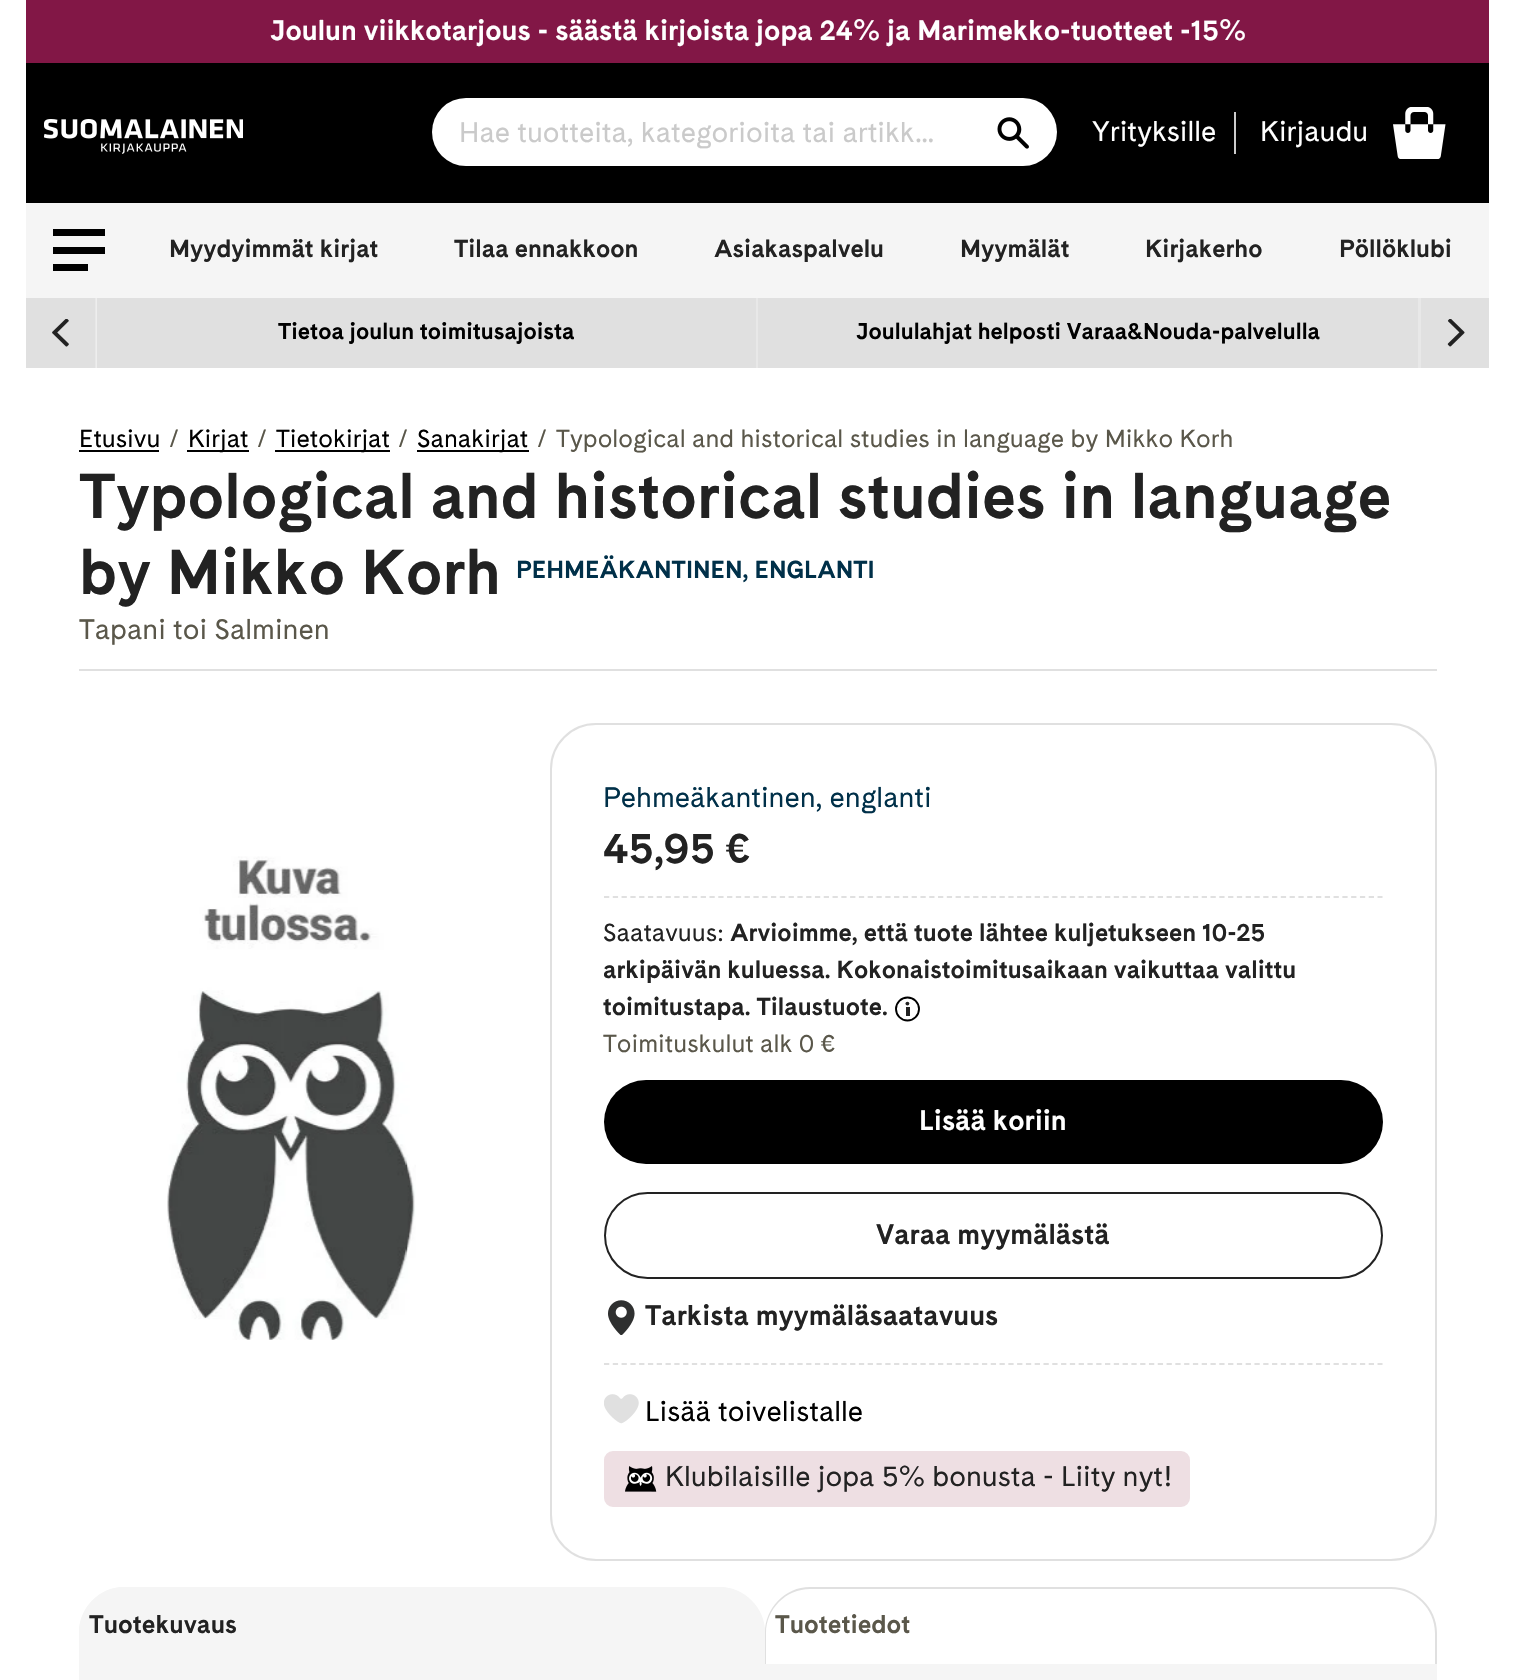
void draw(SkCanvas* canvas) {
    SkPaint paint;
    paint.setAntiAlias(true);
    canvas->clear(0xFFFFFFFF);
    paint.setColor(0xFF821746);
    canvas->drawRect(SkRect::MakeXYWH(26, 0, 1463, 63), paint);
    SkFont font1(fontMgr->matchFamilyStyle("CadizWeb", SkFontStyle::Bold()), 28);
    font1.setSubpixel(true);
    paint.setColor(0xFFFFFFFF);
    canvas->drawString("Joulun viikkotarjous - säästä kirjoista jopa 24% ja Marimekko-tuotteet -15%", 270, 40, font1, paint);
    paint.setColor(0xFF000000);
    canvas->drawRect(SkRect::MakeXYWH(26, 63, 1463, 140), paint);
    canvas->drawImageRect(SkImages::DeferredFromEncodedData(SkData::MakeFromFileName("img1.png")), SkRect::MakeXYWH(44, 119, 199, 35), SkSamplingOptions());
    paint.setColor(0xFFFFFFFF);
    canvas->drawRoundRect(SkRect::MakeXYWH(432, 98, 625, 68), 34, 34, paint);
    SkFont font2(fontMgr->matchFamilyStyle("CadizWeb", SkFontStyle::Normal()), 28);
    font2.setSubpixel(true);
    paint.setColor(0xFFCACACA);
    canvas->drawString("Hae tuotteita, kategorioita tai artikk…", 459, 142, font2, paint);
    canvas->drawImageRect(SkImages::DeferredFromEncodedData(SkData::MakeFromFileName("img2.png")), SkRect::MakeXYWH(997, 117, 32, 32), SkSamplingOptions());
    paint.setColor(0xFFCCCCCC);
    canvas->drawRect(SkRect::MakeXYWH(1234, 112, 2, 42), paint);
    paint.setColor(0xFFFFFFFF);
    canvas->drawString("Yrityksille", 1092, 141, font2, paint);
    canvas->drawString("Kirjaudu", 1260, 141, font2, paint);
    canvas->drawImageRect(SkImages::DeferredFromEncodedData(SkData::MakeFromFileName("img3.png")), SkRect::MakeXYWH(1393, 107, 53, 52), SkSamplingOptions());
    paint.setColor(0xFFF5F5F5);
    canvas->drawRect(SkRect::MakeXYWH(26, 203, 1463, 95), paint);
    paint.setColor(0xFF000000);
    canvas->drawRect(SkRect::MakeXYWH(53, 229, 52, 7), paint);
    canvas->drawRect(SkRect::MakeXYWH(53, 247, 52, 7), paint);
    canvas->drawRect(SkRect::MakeXYWH(53, 264, 35, 7), paint);
    SkFont font3(fontMgr->matchFamilyStyle("CadizWeb", SkFontStyle::Bold()), 24.5f);
    font3.setSubpixel(true);
    paint.setColor(0xFF222222);
    canvas->drawString("Myydyimmät kirjat", 169, 257, font3, paint);
    canvas->drawString("Tilaa ennakkoon", 454, 257, font3, paint);
    canvas->drawString("Asiakaspalvelu", 714, 257, font3, paint);
    canvas->drawString("Myymälät", 960, 257, font3, paint);
    canvas->drawString("Kirjakerho", 1145, 257, font3, paint);
    canvas->drawString("Pöllöklubi", 1339, 257, font3, paint);
    paint.setColor(0xFFE0E0E0);
    canvas->drawRect(SkRect::MakeXYWH(26, 298, 1463, 70), paint);
    paint.setColor(0xFFE8E8E8);
    canvas->drawRect(SkRect::MakeXYWH(95, 298, 1, 70), paint);
    canvas->drawImageRect(SkImages::DeferredFromEncodedData(SkData::MakeFromFileName("img4.png")), SkRect::MakeXYWH(52, 319, 17, 28), SkSamplingOptions());
    paint.setColor(0xFFEEEEEE);
    canvas->drawRect(SkRect::MakeXYWH(96, 298, 1, 70), paint);
    paint.setColor(0xFFE8E8E8);
    canvas->drawRect(SkRect::MakeXYWH(756, 298, 2, 70), paint);
    SkFont font4(fontMgr->matchFamilyStyle("CadizWeb", SkFontStyle::Bold()), 22.75f);
    font4.setSubpixel(true);
    paint.setColor(0xFF000000);
    canvas->drawString("Tietoa joulun toimitusajoista", 278, 339, font4, paint);
    paint.setColor(0xFFE8E8E8);
    canvas->drawRect(SkRect::MakeXYWH(1418, 298, 3, 70), paint);
    paint.setColor(0xFF000000);
    canvas->drawString("Joululahjat helposti Varaa&Nouda-palvelulla", 856, 339, font4, paint);
    canvas->drawImageRect(SkImages::DeferredFromEncodedData(SkData::MakeFromFileName("img5.png")), SkRect::MakeXYWH(1447, 319, 18, 28), SkSamplingOptions());
    SkFont font5(fontMgr->matchFamilyStyle("CadizWeb", SkFontStyle::Normal()), 24.5f);
    font5.setSubpixel(true);
    canvas->drawString("Etusivu", 79, 447, font5, paint);
    canvas->drawRect(SkRect::MakeXYWH(79, 450, 80, 2), paint);
    paint.setColor(0xFF5A574A);
    canvas->drawString("/", 169, 447, font5, paint);
    paint.setColor(0xFF000000);
    canvas->drawRect(SkRect::MakeXYWH(187, 450, 62, 2), paint);
    canvas->drawString("Kirjat", 188, 447, font5, paint);
    paint.setColor(0xFF5A574A);
    canvas->drawString("/", 257, 447, font5, paint);
    paint.setColor(0xFF000000);
    canvas->drawRect(SkRect::MakeXYWH(275, 450, 115, 2), paint);
    canvas->drawString("Tietokirjat", 276, 447, font5, paint);
    paint.setColor(0xFF5A574A);
    canvas->drawString("/", 398, 447, font5, paint);
    paint.setColor(0xFF000000);
    canvas->drawRect(SkRect::MakeXYWH(417, 450, 112, 2), paint);
    canvas->drawString("Sanakirjat", 417, 447, font5, paint);
    paint.setColor(0xFF5A574A);
    canvas->drawString("/", 537, 447, font5, paint);
    canvas->drawString("Typological and historical studies in language by Mikko Korh", 556, 447, font5, paint);
    SkFont font6(fontMgr->matchFamilyStyle("CadizWeb", SkFontStyle::Bold()), 63);
    font6.setSubpixel(true);
    paint.setColor(0xFF222222);
    canvas->drawString("Typological and historical studies in language", 79, 518, font6, paint);
    canvas->drawString("by Mikko Korh", 79, 594, font6, paint);
    paint.setColor(0xFF003049);
    canvas->drawString("PEHMEÄKANTINEN, ENGLANTI", 516, 578, font3, paint);
    paint.setColor(0xFF5A574A);
    canvas->drawString("Tapani toi Salminen", 79, 639, font2, paint);
    paint.setColor(0xFFE0E0E0);
    canvas->drawRect(SkRect::MakeXYWH(79, 669, 1358, 2), paint);
    canvas->drawImageRect(SkImages::DeferredFromEncodedData(SkData::MakeFromFileName("img6.png")), SkRect::MakeXYWH(167, 856, 249, 484), SkSamplingOptions());
    paint.setStyle(SkPaint::kStroke_Style);
    paint.setStrokeWidth(2);
    canvas->drawRoundRect(SkRect::MakeXYWH(551, 724, 885, 836), 45, 45, paint);
    paint.setStyle(SkPaint::kFill_Style);
    paint.setColor(0xFF003049);
    canvas->drawString("Pehmeäkantinen, englanti", 603, 807, font2, paint);
    SkFont font7(fontMgr->matchFamilyStyle("CadizWeb", SkFontStyle::Bold()), 42);
    font7.setSubpixel(true);
    paint.setColor(0xFF222222);
    canvas->drawString("45,95 €", 603, 863, font7, paint);
    paint.setStyle(SkPaint::kStroke_Style);
    paint.setStrokeWidth(1.8f);
    paint.setColor(0xFFE0E0E0);
    paint.setPathEffect(SkDashPathEffect::Make({{5.25f, 3.54f}}, 0));
    canvas->drawPath(SkPathBuilder().moveTo(604, 897).lineTo(1382.5f, 897).detach(), paint);
    paint.setPathEffect(nullptr);
    paint.setStyle(SkPaint::kFill_Style);
    paint.setColor(0xFF222222);
    canvas->drawString("Saatavuus:", 603, 941, font5, paint);
    canvas->drawString("Arvioimme, että tuote lähtee kuljetukseen 10-25", 730, 941, font3, paint);
    canvas->drawString("arkipäivän kuluessa. Kokonaistoimitusaikaan vaikuttaa valittu", 603, 978, font3, paint);
    canvas->drawString("toimitustapa. Tilaustuote.", 603, 1015, font3, paint);
    paint.setStyle(SkPaint::kStroke_Style);
    paint.setStrokeWidth(1.9f);
    paint.setColor(0xFF000000);
    canvas->drawCircle(907.5f, 1009, 11.5f, paint);
    paint.setStyle(SkPaint::kFill_Style);
    paint.setColor(0xFF222222);
    canvas->drawRect(SkRect::MakeXYWH(906, 1007, 4, 9), paint);
    canvas->drawCircle(907.4f, 1003.6f, 1.9f, paint);
    paint.setColor(0xFF5A574A);
    canvas->drawString("Toimituskulut alk 0 €", 603, 1052, font5, paint);
    paint.setColor(0xFF000000);
    canvas->drawRoundRect(SkRect::MakeXYWH(604, 1080, 779, 84), 42, 42, paint);
    paint.setColor(0xFFFFFFFF);
    canvas->drawString("Lisää koriin", 919, 1130, font1, paint);
    paint.setStyle(SkPaint::kStroke_Style);
    paint.setStrokeWidth(2);
    paint.setColor(0xFF222222);
    canvas->drawRoundRect(SkRect::MakeXYWH(605, 1193, 777, 85), 42.5f, 42.5f, paint);
    paint.setStyle(SkPaint::kFill_Style);
    canvas->drawString("Varaa myymälästä", 876, 1244, font1, paint);
    canvas->drawImageRect(SkImages::DeferredFromEncodedData(SkData::MakeFromFileName("img7.png")), SkRect::MakeXYWH(608, 1300, 27, 35), SkSamplingOptions());
    canvas->drawString("Tarkista myymäläsaatavuus", 645, 1325, font1, paint);
    paint.setStyle(SkPaint::kStroke_Style);
    paint.setStrokeWidth(1.8f);
    paint.setColor(0xFFE0E0E0);
    paint.setPathEffect(SkDashPathEffect::Make({{5.25f, 3.54f}}, 0));
    canvas->drawPath(SkPathBuilder().moveTo(604, 1364).lineTo(1382.5f, 1364).detach(), paint);
    paint.setPathEffect(nullptr);
    canvas->drawImageRect(SkImages::DeferredFromEncodedData(SkData::MakeFromFileName("img8.png")), SkRect::MakeXYWH(604, 1394, 35, 30), SkSamplingOptions());
    paint.setStyle(SkPaint::kFill_Style);
    paint.setColor(0xFF000000);
    canvas->drawString("Lisää toivelistalle", 645, 1421, font2, paint);
    paint.setColor(0xFFEEDFE3);
    canvas->drawRoundRect(SkRect::MakeXYWH(605, 1452, 584, 54), 8, 8, paint);
    paint.setStyle(SkPaint::kStroke_Style);
    paint.setStrokeWidth(2);
    canvas->drawRoundRect(SkRect::MakeXYWH(605, 1452, 584, 54), 8, 8, paint);
    canvas->drawImageRect(SkImages::DeferredFromEncodedData(SkData::MakeFromFileName("img9.png")), SkRect::MakeXYWH(625, 1466, 32, 26), SkSamplingOptions());
    paint.setStyle(SkPaint::kFill_Style);
    paint.setColor(0xFF222222);
    canvas->drawString("Klubilaisille jopa 5% bonusta - Liity nyt!", 665, 1486, font2, paint);
    paint.setColor(0xFFF5F5F5);
    canvas->drawPath(SkPathBuilder().moveTo(125, 1587).lineTo(719, 1587).cubicTo(744.5f, 1587, 765, 1607.5f, 765, 1633).lineTo(765, 1664).lineTo(79, 1664).lineTo(79, 1633).cubicTo(79, 1607.5f, 99.5f, 1587, 125, 1587).close().detach(), paint);
    canvas->drawPath(SkPathBuilder(SkPathFillType::kEvenOdd).moveTo(124, 1587).lineTo(719, 1587).cubicTo(744, 1587, 765, 1608, 765, 1633).lineTo(765, 1664).lineTo(79, 1664).lineTo(79, 1633).cubicTo(79, 1608, 99, 1587, 124, 1587).close().moveTo(124, 1589).lineTo(719, 1589).cubicTo(743, 1589, 763, 1609, 763, 1633).lineTo(763, 1664).lineTo(80, 1664).lineTo(80, 1633).cubicTo(80, 1609, 100, 1589, 124, 1589).close().detach(), paint);
    SkFont font8(fontMgr->matchFamilyStyle("CadizWeb", SkFontStyle::Bold()), 25.25f);
    font8.setSubpixel(true);
    paint.setColor(0xFF222222);
    canvas->drawString("Tuotekuvaus", 89, 1633, font8, paint);
    paint.setColor(0xFFE0E0E0);
    canvas->drawPath(SkPathBuilder(SkPathFillType::kEvenOdd).moveTo(810, 1587).lineTo(1391, 1587).cubicTo(1416, 1587, 1437, 1608, 1437, 1633).lineTo(1437, 1664).lineTo(765, 1664).lineTo(765, 1633).cubicTo(765, 1608, 785, 1587, 810, 1587).close().moveTo(810, 1589).lineTo(1391, 1589).cubicTo(1415, 1589, 1435, 1609, 1435, 1633).lineTo(1435, 1664).lineTo(766, 1664).lineTo(766, 1633).cubicTo(766, 1609, 786, 1589, 810, 1589).close().detach(), paint);
    paint.setColor(0xFF5A574A);
    canvas->drawString("Tuotetiedot", 775, 1633, font8, paint);
    paint.setColor(0xFFF5F5F5);
    canvas->drawRect(SkRect::MakeXYWH(79, 1664, 1358, 16), paint);
}
